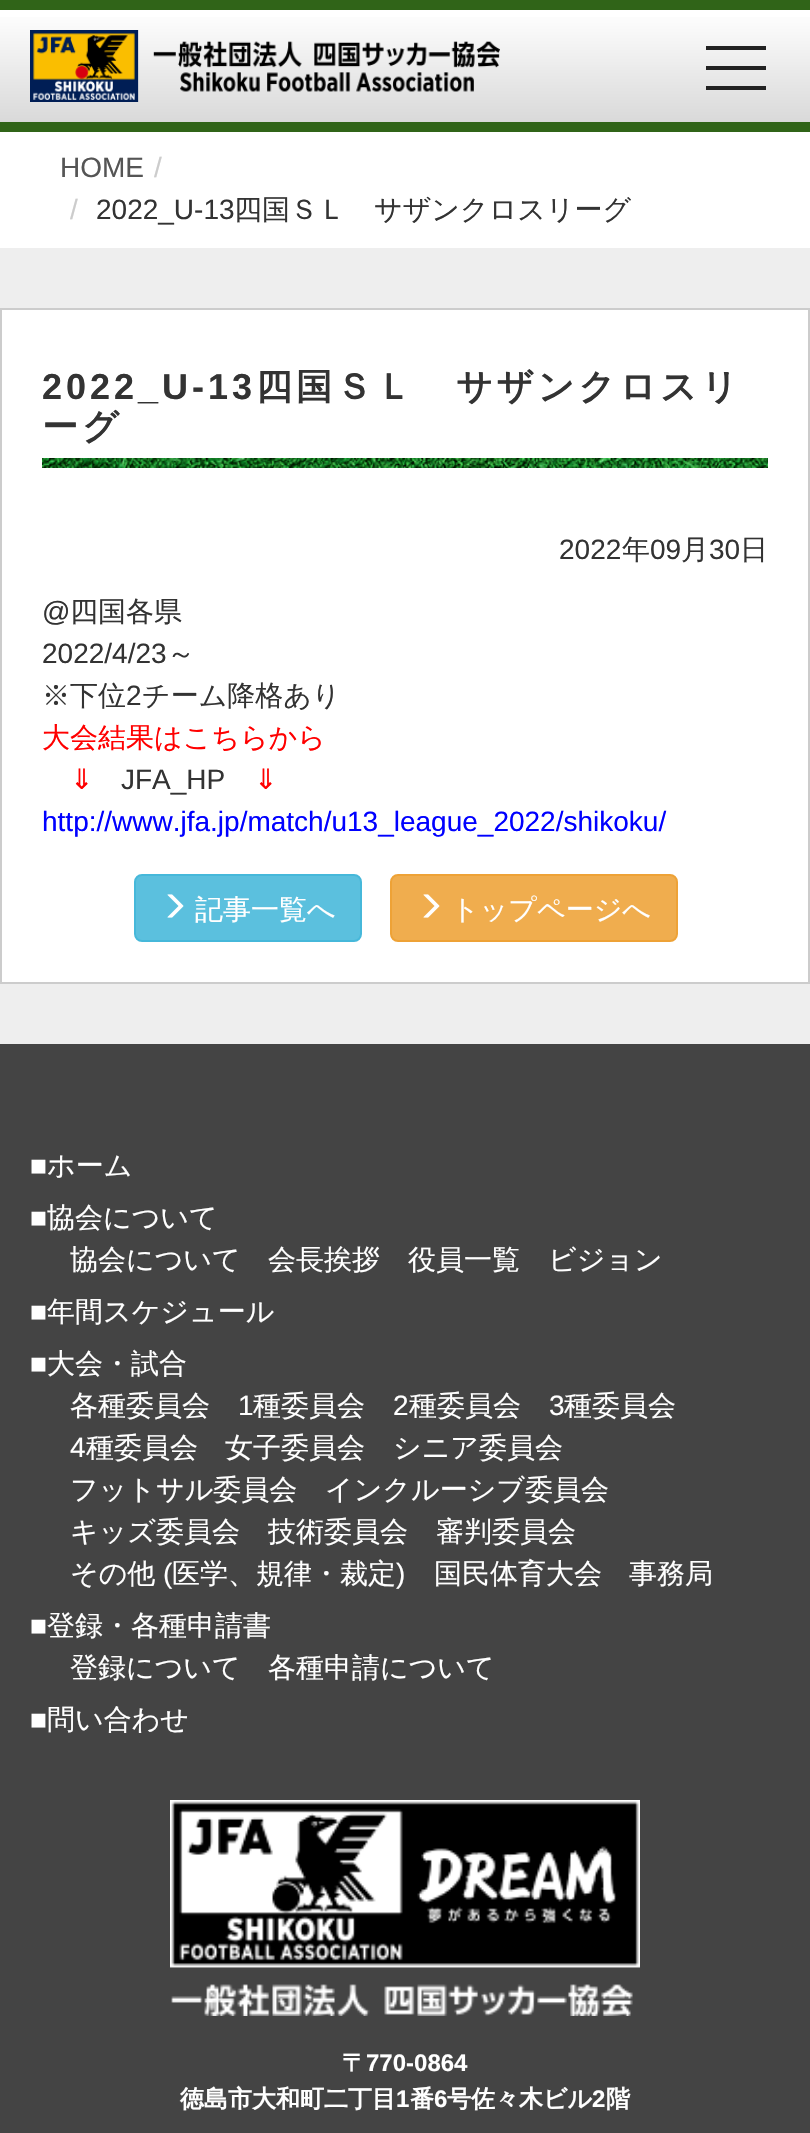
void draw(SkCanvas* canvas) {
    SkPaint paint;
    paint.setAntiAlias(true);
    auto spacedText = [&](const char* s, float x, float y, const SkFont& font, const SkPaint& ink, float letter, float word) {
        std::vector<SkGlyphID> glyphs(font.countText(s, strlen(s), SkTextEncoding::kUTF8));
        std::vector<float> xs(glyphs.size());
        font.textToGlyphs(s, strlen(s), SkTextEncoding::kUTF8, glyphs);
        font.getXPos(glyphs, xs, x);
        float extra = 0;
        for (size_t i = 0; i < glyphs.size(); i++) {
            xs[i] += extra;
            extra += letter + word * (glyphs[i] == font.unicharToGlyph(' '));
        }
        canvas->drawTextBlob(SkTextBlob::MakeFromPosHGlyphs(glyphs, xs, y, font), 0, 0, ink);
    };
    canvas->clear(0xFFFFFFFF);
    {
        const SkColor colors[] = {0xFFFFFFFF, 0xFFD9D9D9};
        const float stops[] = {0, 1};
        const SkPoint ends[] = {{405, 10}, {405, 122}};
        paint.setShader(SkGradientShader::MakeLinear(ends, colors, stops, 2, SkTileMode::kClamp));
        paint.setAlpha(255);
    }
    canvas->drawRect(SkRect::MakeXYWH(0, 17, 810, 105), paint);
    paint.setShader(nullptr);
    paint.setColor(0xFF306418);
    canvas->drawRect(SkRect::MakeXYWH(0, 0, 810, 10), paint);
    canvas->drawRect(SkRect::MakeXYWH(0, 122, 810, 10), paint);
    canvas->drawImageRect(SkImages::DeferredFromEncodedData(SkData::MakeFromFileName("img1.png")), SkRect::MakeXYWH(30, 30, 470, 72), SkSamplingOptions());
    paint.setColor(0xFF222222);
    canvas->drawRect(SkRect::MakeXYWH(706, 66, 60, 4), paint);
    canvas->drawRect(SkRect::MakeXYWH(706, 46, 60, 4), paint);
    canvas->drawRect(SkRect::MakeXYWH(706, 86, 60, 4), paint);
    SkFont font1(fontMgr->matchFamilyStyle("Liberation Sans", SkFontStyle::Normal()), 28);
    font1.setSubpixel(true);
    paint.setColor(0xFF555555);
    canvas->drawString("HOME", 60, 177, font1, paint);
    paint.setColor(0xFFCCCCCC);
    canvas->drawString("/", 154, 177, font1, paint);
    canvas->drawString("/", 70, 219, font1, paint);
    paint.setColor(0xFF333333);
    canvas->drawString("2022_U-13", 96, 219, font1, paint);
    SkFont font2(fontMgr->matchFamilyStyle("WenQuanYi Zen Hei", SkFontStyle(500, SkFontStyle::kNormal_Width, SkFontStyle::kUpright_Slant)), 28);
    font2.setSubpixel(true);
    canvas->drawString("四国ＳＬ　サザンクロスリーグ", 234, 219, font2, paint);
    paint.setColor(0xFFEEEEEE);
    canvas->drawRect(SkRect::MakeXYWH(0, 248, 810, 796), paint);
    paint.setColor(0xFFFFFFFF);
    canvas->drawRect(SkRect::MakeXYWH(1, 309, 808, 674), paint);
    paint.setStyle(SkPaint::kStroke_Style);
    paint.setStrokeWidth(2);
    paint.setColor(0xFFCCCCCC);
    canvas->drawRect(SkRect::MakeXYWH(1, 309, 808, 674), paint);
    SkFont font3(fontMgr->matchFamilyStyle("Liberation Sans", SkFontStyle::Bold()), 36);
    font3.setSubpixel(true);
    paint.setStyle(SkPaint::kFill_Style);
    paint.setColor(0xFF333333);
    spacedText("2022_U-13", 42, 399, font3, paint, 4, 0);
    SkFont font4(fontMgr->matchFamilyStyle("WenQuanYi Zen Hei", SkFontStyle::Bold()), 36);
    font4.setSubpixel(true);
    spacedText("四国ＳＬ　サザンクロスリ", 256, 399, font4, paint, 4, 0);
    spacedText("ーグ", 42, 439, font4, paint, 4, 0);
    canvas->drawImageRect(SkImages::DeferredFromEncodedData(SkData::MakeFromFileName("img2.png")), SkRect::MakeXYWH(42, 458, 726, 10), SkSamplingOptions());
    canvas->drawString("2022", 559, 559, font1, paint);
    canvas->drawString("年", 622, 559, font2, paint);
    canvas->drawString("09", 650, 559, font1, paint);
    canvas->drawString("月", 681, 559, font2, paint);
    canvas->drawString("30", 709, 559, font1, paint);
    canvas->drawString("日", 740, 559, font2, paint);
    canvas->drawString("@", 42, 621, font1, paint);
    canvas->drawString("四国各県", 70, 621, font2, paint);
    canvas->drawString("2022/4/23", 42, 663, font1, paint);
    canvas->drawString("～", 167, 663, font2, paint);
    canvas->drawString("※下位", 42, 705, font2, paint);
    canvas->drawString("2", 126, 705, font1, paint);
    canvas->drawString("チーム降格あり", 142, 705, font2, paint);
    paint.setColor(0xFFFF0000);
    canvas->drawString("大会結果はこちらから", 42, 747, font2, paint);
    SkFont font5(fontMgr->matchFamilyStyle("DejaVu Sans", SkFontStyle::Normal()), 28);
    font5.setSubpixel(true);
    canvas->drawString("⇓", 70, 789, font5, paint);
    paint.setColor(0xFF333333);
    canvas->drawString("JFA_HP", 121, 789, font1, paint);
    paint.setColor(0xFFFF0000);
    canvas->drawString("⇓", 254, 789, font5, paint);
    paint.setColor(0xFF0000FF);
    canvas->drawString("http://www.jfa.jp/match/u13_league_2022/shikoku/", 42, 831, font1, paint);
    paint.setColor(0xFF5BC0DE);
    canvas->drawRoundRect(SkRect::MakeXYWH(135, 875, 226, 66), 7, 7, paint);
    paint.setStyle(SkPaint::kStroke_Style);
    paint.setColor(0xFF46B8DA);
    canvas->drawRoundRect(SkRect::MakeXYWH(135, 875, 226, 66), 7, 7, paint);
    canvas->drawImageRect(SkImages::DeferredFromEncodedData(SkData::MakeFromFileName("img3.png")), SkRect::MakeXYWH(167, 894, 17, 24), SkSamplingOptions());
    paint.setStyle(SkPaint::kFill_Style);
    paint.setColor(0xFFFFFFFF);
    canvas->drawString("記事一覧へ", 195, 919, font2, paint);
    paint.setColor(0xFFF0AD4E);
    canvas->drawRoundRect(SkRect::MakeXYWH(391, 875, 286, 66), 7, 7, paint);
    paint.setStyle(SkPaint::kStroke_Style);
    paint.setColor(0xFFEEA236);
    canvas->drawRoundRect(SkRect::MakeXYWH(391, 875, 286, 66), 7, 7, paint);
    canvas->drawImageRect(SkImages::DeferredFromEncodedData(SkData::MakeFromFileName("img4.png")), SkRect::MakeXYWH(423, 894, 17, 24), SkSamplingOptions());
    paint.setStyle(SkPaint::kFill_Style);
    paint.setColor(0xFFFFFFFF);
    canvas->drawString("トップページへ", 451, 919, font2, paint);
    paint.setColor(0xFF444444);
    canvas->drawRect(SkRect::MakeXYWH(0, 1044, 810, 1089), paint);
    paint.setColor(0xFFFFFFFF);
    canvas->drawString("■", 30, 1175, font1, paint);
    canvas->drawString("ホーム", 47, 1175, font2, paint);
    canvas->drawString("■", 30, 1227, font1, paint);
    canvas->drawString("協会について", 47, 1227, font2, paint);
    canvas->drawString("協会について", 70, 1269, font2, paint);
    canvas->drawString("会長挨拶", 268, 1269, font2, paint);
    canvas->drawString("役員一覧", 408, 1269, font2, paint);
    canvas->drawString("ビジョン", 548, 1269, font2, paint);
    canvas->drawString("■", 30, 1321, font1, paint);
    canvas->drawString("年間スケジュール", 47, 1321, font2, paint);
    canvas->drawString("■", 30, 1373, font1, paint);
    canvas->drawString("大会・試合", 47, 1373, font2, paint);
    canvas->drawString("各種委員会", 70, 1415, font2, paint);
    canvas->drawString("1", 238, 1415, font1, paint);
    canvas->drawString("種委員会", 253, 1415, font2, paint);
    canvas->drawString("2", 393, 1415, font1, paint);
    canvas->drawString("種委員会", 409, 1415, font2, paint);
    canvas->drawString("3", 549, 1415, font1, paint);
    canvas->drawString("種委員会", 564, 1415, font2, paint);
    canvas->drawString("4", 70, 1457, font1, paint);
    canvas->drawString("種委員会", 86, 1457, font2, paint);
    canvas->drawString("女子委員会", 225, 1457, font2, paint);
    canvas->drawString("シニア委員会", 393, 1457, font2, paint);
    canvas->drawString("フットサル委員会", 70, 1499, font2, paint);
    canvas->drawString("インクルーシブ委員会", 325, 1499, font2, paint);
    canvas->drawString("キッズ委員会", 70, 1541, font2, paint);
    canvas->drawString("技術委員会", 268, 1541, font2, paint);
    canvas->drawString("審判委員会", 436, 1541, font2, paint);
    canvas->drawString("その他", 70, 1583, font2, paint);
    canvas->drawString("(", 163, 1583, font1, paint);
    canvas->drawString("医学、規律・裁定", 172, 1583, font2, paint);
    canvas->drawString(")", 396, 1583, font1, paint);
    canvas->drawString("国民体育大会", 434, 1583, font2, paint);
    canvas->drawString("事務局", 629, 1583, font2, paint);
    canvas->drawString("■", 30, 1635, font1, paint);
    canvas->drawString("登録・各種申請書", 47, 1635, font2, paint);
    canvas->drawString("登録について", 70, 1677, font2, paint);
    canvas->drawString("各種申請について", 268, 1677, font2, paint);
    canvas->drawString("■", 30, 1729, font1, paint);
    canvas->drawString("問い合わせ", 47, 1729, font2, paint);
    canvas->drawImageRect(SkImages::DeferredFromEncodedData(SkData::MakeFromFileName("img5.png")), SkRect::MakeXYWH(170, 1800, 470, 216), SkSamplingOptions());
    SkFont font6(fontMgr->matchFamilyStyle("WenQuanYi Zen Hei", SkFontStyle::Bold()), 24);
    font6.setSubpixel(true);
    canvas->drawString("〒", 342, 2071, font6, paint);
    SkFont font7(fontMgr->matchFamilyStyle("Liberation Sans", SkFontStyle::Bold()), 24);
    font7.setSubpixel(true);
    canvas->drawString("770-0864", 366, 2071, font7, paint);
    canvas->drawString("徳島市大和町二丁目", 180, 2107, font6, paint);
    canvas->drawString("1", 396, 2107, font7, paint);
    canvas->drawString("番", 410, 2107, font6, paint);
    canvas->drawString("6", 434, 2107, font7, paint);
    canvas->drawString("号佐々木ビル", 447, 2107, font6, paint);
    canvas->drawString("2", 592, 2107, font7, paint);
    canvas->drawString("階", 606, 2107, font6, paint);
}
